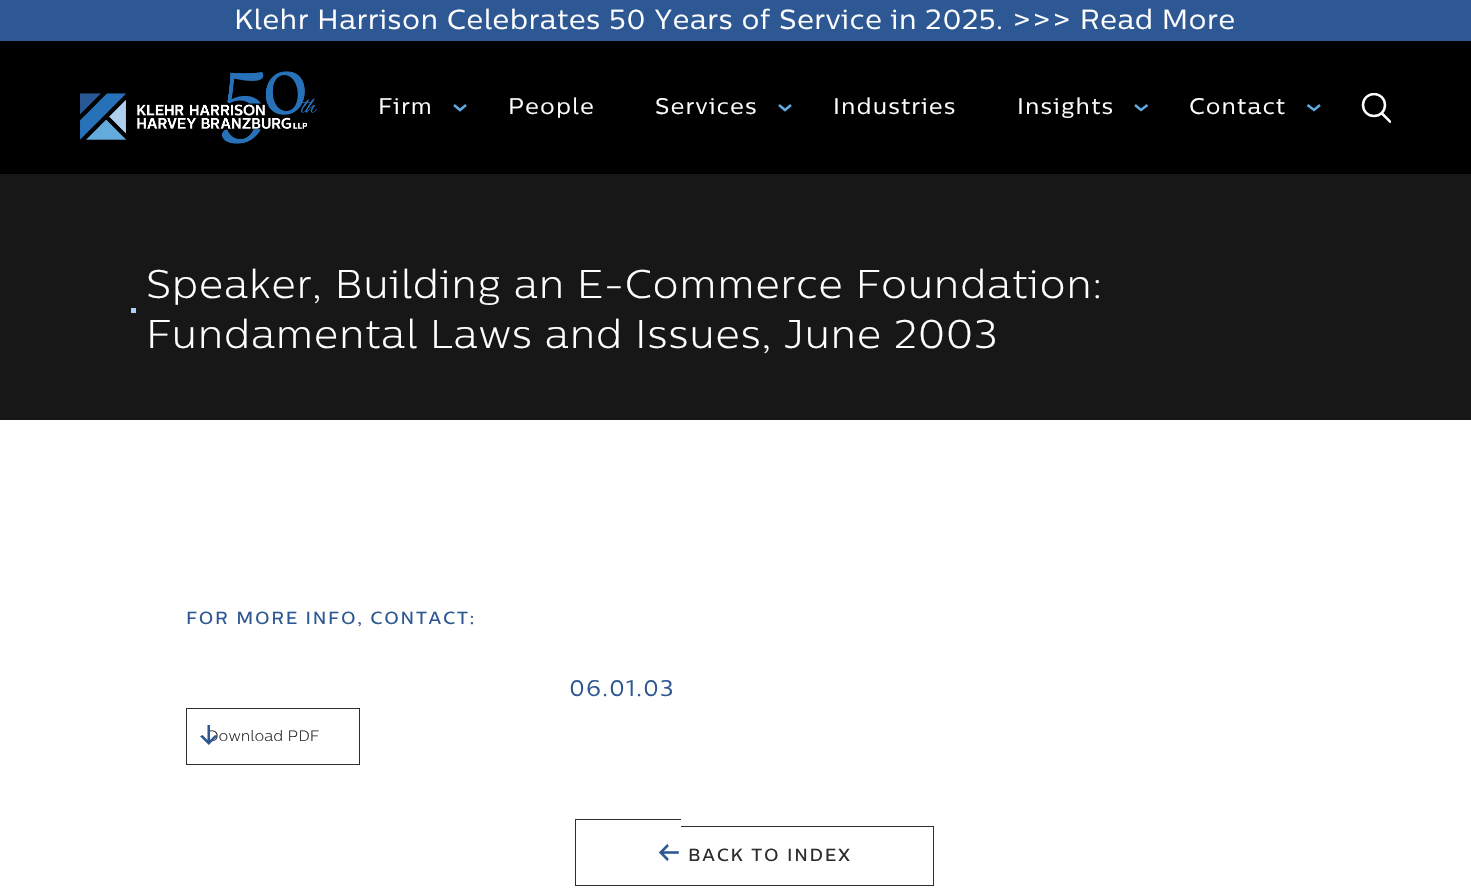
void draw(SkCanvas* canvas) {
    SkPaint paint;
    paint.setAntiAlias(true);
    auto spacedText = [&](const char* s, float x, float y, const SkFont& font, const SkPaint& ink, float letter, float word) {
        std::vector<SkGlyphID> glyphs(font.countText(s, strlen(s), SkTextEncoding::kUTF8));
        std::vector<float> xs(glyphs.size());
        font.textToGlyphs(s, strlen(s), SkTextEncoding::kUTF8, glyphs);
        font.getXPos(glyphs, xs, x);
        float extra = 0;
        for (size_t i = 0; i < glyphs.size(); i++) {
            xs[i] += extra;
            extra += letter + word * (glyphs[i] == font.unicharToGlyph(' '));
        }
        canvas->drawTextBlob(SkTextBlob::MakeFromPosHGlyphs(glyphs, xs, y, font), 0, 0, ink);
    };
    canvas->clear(0xFFFFFFFF);
    paint.setColor(0xFF000000);
    canvas->drawRect(SkRect::MakeXYWH(0, 41, 1471, 133), paint);
    paint.setColor(0xFF2E5893);
    canvas->drawRect(SkRect::MakeXYWH(0, 0, 1471, 41), paint);
    SkFont font1(fontMgr->matchFamilyStyle("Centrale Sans", SkFontStyle::Normal()), 27.5f);
    font1.setSubpixel(true);
    paint.setColor(0xFFFFFFFF);
    spacedText("Klehr Harrison Celebrates 50 Years of Service in 2025. >>> Read More", 234, 29, font1, paint, 0.4f, 0);
    canvas->drawImageRect(SkImages::DeferredFromEncodedData(SkData::MakeFromFileName("img1.png")), SkRect::MakeXYWH(80, 71, 238, 73), SkSamplingOptions());
    SkFont font2(fontMgr->matchFamilyStyle("Centrale Sans", SkFontStyle::Normal()), 22.5f);
    font2.setSubpixel(true);
    spacedText("Firm", 378, 114, font2, paint, 1.1f, 0);
    paint.setStyle(SkPaint::kStroke_Style);
    paint.setStrokeWidth(2.5f);
    paint.setColor(0xFF60AAE2);
    canvas->drawPath(SkPathBuilder().moveTo(454, 105).lineTo(460, 110).lineTo(466, 105).detach(), paint);
    paint.setStyle(SkPaint::kFill_Style);
    paint.setColor(0xFFFFFFFF);
    spacedText("People", 508, 114, font2, paint, 1.1f, 0);
    spacedText("Services", 655, 114, font2, paint, 1.1f, 0);
    paint.setStyle(SkPaint::kStroke_Style);
    paint.setColor(0xFF60AAE2);
    canvas->drawPath(SkPathBuilder().moveTo(779, 105).lineTo(785, 110).lineTo(791, 105).detach(), paint);
    paint.setStyle(SkPaint::kFill_Style);
    paint.setColor(0xFFFFFFFF);
    spacedText("Industries", 833, 114, font2, paint, 1.1f, 0);
    spacedText("Insights", 1017, 114, font2, paint, 1.1f, 0);
    paint.setStyle(SkPaint::kStroke_Style);
    paint.setColor(0xFF60AAE2);
    canvas->drawPath(SkPathBuilder().moveTo(1135, 105).lineTo(1141, 110).lineTo(1147.5f, 105).detach(), paint);
    paint.setStyle(SkPaint::kFill_Style);
    paint.setColor(0xFFFFFFFF);
    spacedText("Contact", 1189, 114, font2, paint, 1.1f, 0);
    paint.setStyle(SkPaint::kStroke_Style);
    paint.setColor(0xFF60AAE2);
    canvas->drawPath(SkPathBuilder().moveTo(1307.5f, 105).lineTo(1314, 110).lineTo(1320, 105).detach(), paint);
    canvas->save();
    canvas->clipRect(SkRect::MakeXYWH(1361, 93, 30, 30));
    paint.setColor(0xFFFFFFFF);
    canvas->drawCircle(1374, 105, 11, paint);
    canvas->drawPath(SkPathBuilder().moveTo(1381, 112.5f).lineTo(1391, 122.5f).detach(), paint);
    canvas->restore();
    paint.setStyle(SkPaint::kFill_Style);
    paint.setColor(0xFF171717);
    canvas->drawRect(SkRect::MakeXYWH(0, 174, 1471, 246), paint);
    SkFont font3(fontMgr->matchFamilyStyle("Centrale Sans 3", SkFontStyle::Normal()), 40);
    font3.setSubpixel(true);
    paint.setColor(0xFFFFFFFF);
    spacedText("Speaker, Building an E-Commerce Foundation:", 146, 298, font3, paint, 0.6f, 0);
    paint.setColor(0xFFACD1F8);
    canvas->drawRect(SkRect::MakeXYWH(131, 308, 5, 5), paint);
    paint.setColor(0xFFFFFFFF);
    spacedText("Fundamental Laws and Issues, June 2003", 146, 348, font3, paint, 0.6f, 0);
    SkFont font4(fontMgr->matchFamilyStyle("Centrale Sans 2", SkFontStyle::Normal()), 17.5f);
    font4.setSubpixel(true);
    paint.setColor(0xFF2E5893);
    spacedText("FOR MORE INFO, CONTACT:", 186, 624, font4, paint, 1.75f, 0);
    paint.setStyle(SkPaint::kStroke_Style);
    paint.setStrokeWidth(1);
    paint.setColor(0xFF2D2D2D);
    canvas->drawRect(SkRect::MakeXYWH(186.5f, 708.5f, 173, 56), paint);
    SkFont font5(fontMgr->matchFamilyStyle("Centrale Sans 3", SkFontStyle::Normal()), 15);
    font5.setSubpixel(true);
    paint.setStyle(SkPaint::kFill_Style);
    canvas->drawString("Download PDF", 207, 741, font5, paint);
    canvas->drawImageRect(SkImages::DeferredFromEncodedData(SkData::MakeFromFileName("img2.png")), SkRect::MakeXYWH(200, 725, 18, 20), SkSamplingOptions());
    paint.setColor(0xFF2E5893);
    spacedText("06.01.03", 569, 696, font2, paint, 1.1f, 0);
    paint.setColor(0xFF2D2D2D);
    canvas->drawRect(SkRect::MakeXYWH(575, 819, 106, 1), paint);
    canvas->drawRect(SkRect::MakeXYWH(575, 885, 106, 1), paint);
    canvas->drawRect(SkRect::MakeXYWH(575, 819, 1, 67), paint);
    canvas->drawRect(SkRect::MakeXYWH(681, 826, 253, 1), paint);
    canvas->drawRect(SkRect::MakeXYWH(933, 826, 1, 60), paint);
    canvas->drawRect(SkRect::MakeXYWH(681, 885, 253, 1), paint);
    canvas->drawImageRect(SkImages::DeferredFromEncodedData(SkData::MakeFromFileName("img3.png")), SkRect::MakeXYWH(658, 843, 21, 19), SkSamplingOptions());
    spacedText("BACK TO INDEX", 688, 861, font4, paint, 1.75f, 0);
}
